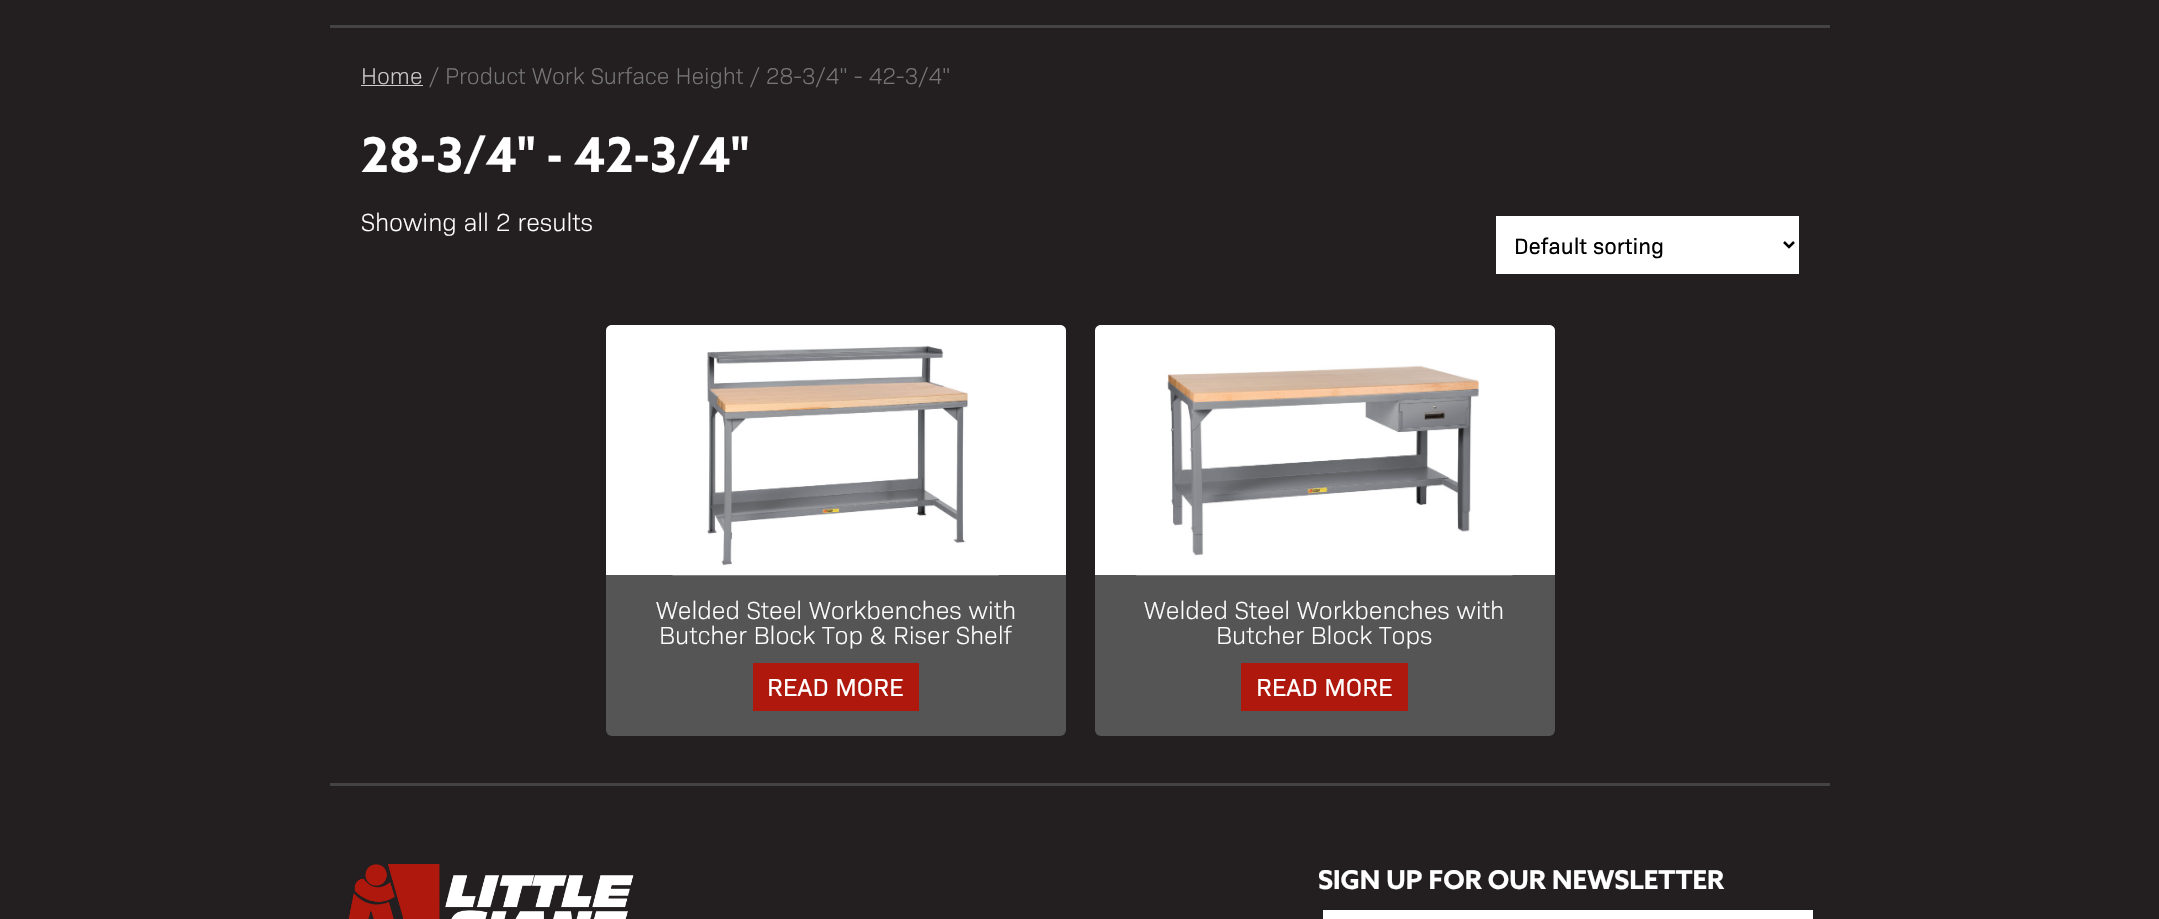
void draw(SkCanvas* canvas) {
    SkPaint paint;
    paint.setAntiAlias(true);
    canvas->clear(0xFF231F20);
    paint.setColor(0xFF444444);
    canvas->drawRect(SkRect::MakeXYWH(330, 25, 1500, 3), paint);
    canvas->drawRect(SkRect::MakeXYWH(330, 783, 1500, 3), paint);
    SkFont font1(fontMgr->matchFamilyStyle("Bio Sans", SkFontStyle(300, SkFontStyle::kNormal_Width, SkFontStyle::kUpright_Slant)), 23);
    font1.setSubpixel(true);
    paint.setColor(0xFFCCCCCC);
    canvas->drawString("Home", 361, 84, font1, paint);
    canvas->drawRect(SkRect::MakeXYWH(361, 85, 62, 1), paint);
    paint.setColor(0xFF767676);
    canvas->drawString("/ Product Work Surface Height / 28-3/4\" - 42-3/4\"", 429, 84, font1, paint);
    SkFont font2(fontMgr->matchFamilyStyle("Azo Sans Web", SkFontStyle::Bold()), 48);
    font2.setSubpixel(true);
    paint.setColor(0xFFFFFFFF);
    canvas->drawString("28-3/4\" - 42-3/4\"", 361, 172, font2, paint);
    SkFont font3(fontMgr->matchFamilyStyle("Bio Sans", SkFontStyle(300, SkFontStyle::kNormal_Width, SkFontStyle::kUpright_Slant)), 25);
    font3.setSubpixel(true);
    canvas->drawString("Showing all 2 results", 361, 231, font3, paint);
    canvas->drawRect(SkRect::MakeXYWH(1496, 216, 303, 58), paint);
    paint.setStyle(SkPaint::kStroke_Style);
    paint.setStrokeWidth(2.5f);
    paint.setColor(0xFF000000);
    canvas->drawPath(SkPathBuilder().moveTo(1784, 242).lineTo(1789, 247).lineTo(1794, 242).detach(), paint);
    SkFont font4(fontMgr->matchFamilyStyle("Bio Sans", SkFontStyle::Normal()), 22.5f);
    font4.setSubpixel(true);
    paint.setStyle(SkPaint::kFill_Style);
    canvas->drawString("Default sorting", 1514, 254, font4, paint);
    paint.setColor(0xFF555555);
    canvas->drawRoundRect(SkRect::MakeXYWH(606, 325, 460, 411), 6, 6, paint);
    paint.setColor(0xFFFFFFFF);
    canvas->drawPath(SkPathBuilder().moveTo(612, 325).lineTo(1060, 325).cubicTo(1063.5f, 325, 1066, 327.5f, 1066, 331).lineTo(1066, 575).lineTo(606, 575).lineTo(606, 331).cubicTo(606, 327.5f, 608.5f, 325, 612, 325).close().detach(), paint);
    canvas->drawImageRect(SkImages::DeferredFromEncodedData(SkData::MakeFromFileName("img1.png")), SkRect::MakeXYWH(672, 345, 327, 231), SkSamplingOptions());
    canvas->drawString("Welded Steel Workbenches with", 656, 619, font3, paint);
    canvas->drawString("Butcher Block Top & Riser Shelf", 659, 644, font3, paint);
    paint.setColor(0xFFAF180D);
    canvas->drawRect(SkRect::MakeXYWH(753, 663, 166, 48), paint);
    SkFont font5(fontMgr->matchFamilyStyle("Bio Sans", SkFontStyle::Normal()), 25);
    font5.setSubpixel(true);
    paint.setColor(0xFFFFFFFF);
    canvas->drawString("READ MORE", 767, 696, font5, paint);
    paint.setColor(0xFF555555);
    canvas->drawRoundRect(SkRect::MakeXYWH(1095, 325, 460, 411), 6, 6, paint);
    paint.setColor(0xFFFFFFFF);
    canvas->drawPath(SkPathBuilder().moveTo(1101, 325).lineTo(1549, 325).cubicTo(1552.5f, 325, 1555, 327.5f, 1555, 331).lineTo(1555, 575).lineTo(1095, 575).lineTo(1095, 331).cubicTo(1095, 327.5f, 1097.5f, 325, 1101, 325).close().detach(), paint);
    canvas->drawImageRect(SkImages::DeferredFromEncodedData(SkData::MakeFromFileName("img2.png")), SkRect::MakeXYWH(1136, 365, 377, 211), SkSamplingOptions());
    canvas->drawString("Welded Steel Workbenches with", 1144, 619, font3, paint);
    canvas->drawString("Butcher Block Tops", 1216, 644, font3, paint);
    paint.setColor(0xFFAF180D);
    canvas->drawRect(SkRect::MakeXYWH(1241, 663, 167, 48), paint);
    paint.setColor(0xFFFFFFFF);
    canvas->drawString("READ MORE", 1256, 696, font5, paint);
    canvas->drawImageRect(SkImages::DeferredFromEncodedData(SkData::MakeFromFileName("img3.png")), SkRect::MakeXYWH(348, 864, 286, 55), SkSamplingOptions());
    SkFont font6(fontMgr->matchFamilyStyle("Azo Sans Web", SkFontStyle::Bold()), 26);
    font6.setSubpixel(true);
    canvas->drawString("SIGN UP FOR OUR NEWSLETTER", 1318, 889, font6, paint);
    canvas->drawRect(SkRect::MakeXYWH(1323, 910, 490, 9), paint);
}
